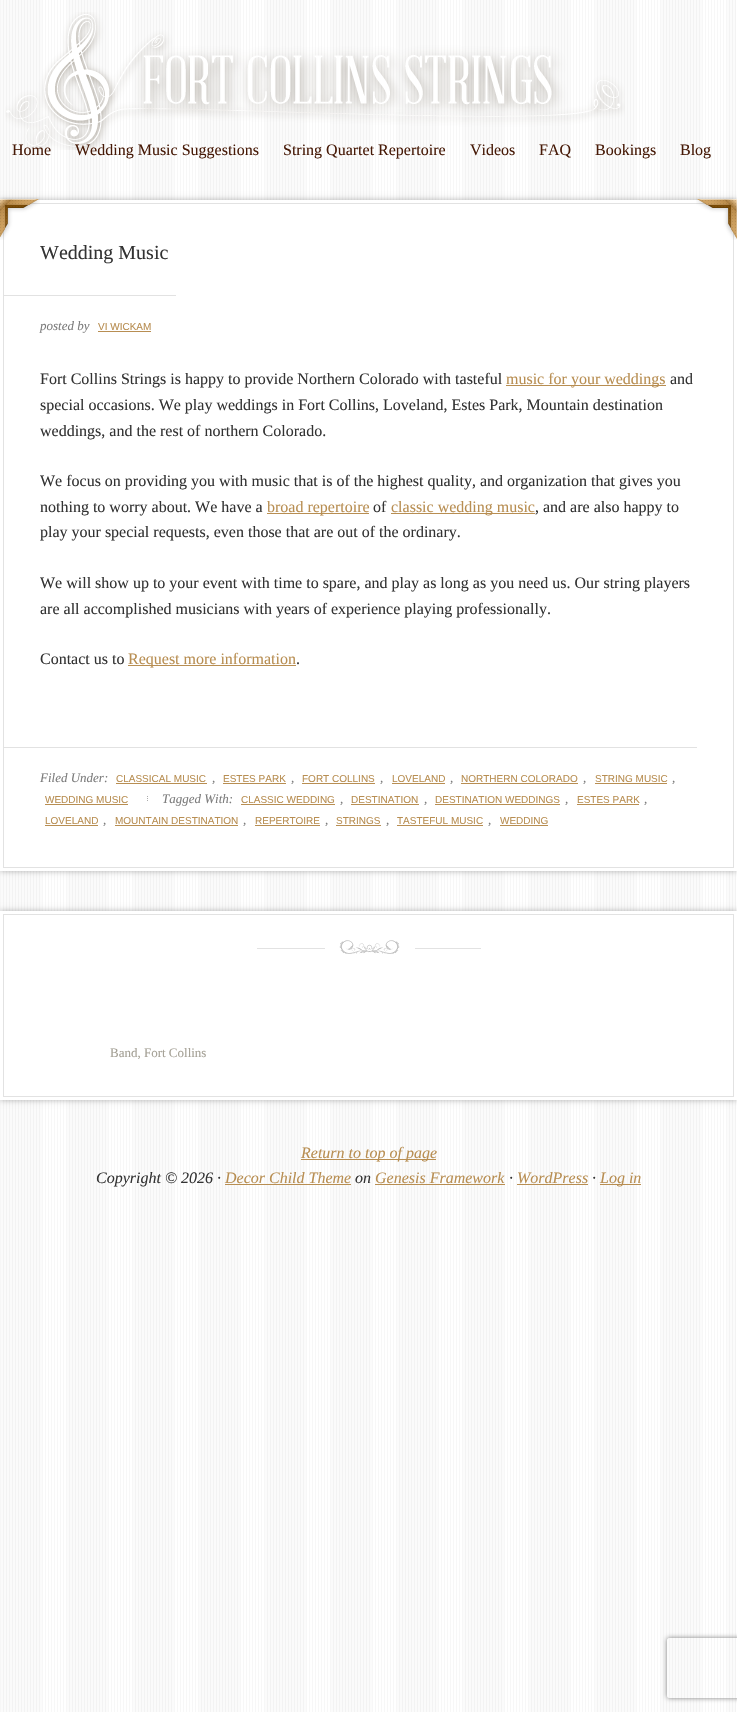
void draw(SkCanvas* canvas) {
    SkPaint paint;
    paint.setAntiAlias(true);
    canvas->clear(0xFFFFFFFF);
    canvas->drawImageRect(SkImages::DeferredFromEncodedData(SkData::MakeFromFileName("img1.png")), SkRect::MakeXYWH(0, 0, 736, 1712), SkSamplingOptions());
    canvas->drawImageRect(SkImages::DeferredFromEncodedData(SkData::MakeFromFileName("img2.png")), SkRect::MakeXYWH(5, 12, 620, 138), SkSamplingOptions());
    SkFont font1(fontMgr->matchFamilyStyle("Liberation Serif", SkFontStyle::Normal()), 16);
    font1.setSubpixel(true);
    paint.setColor(0xFF471A07);
    canvas->drawString("Home", 12, 155, font1, paint);
    canvas->drawString("Wedding Music Suggestions", 75, 155, font1, paint);
    canvas->drawString("String Quartet Repertoire", 283, 155, font1, paint);
    canvas->drawString("Videos", 470, 155, font1, paint);
    canvas->drawString("FAQ", 539, 155, font1, paint);
    canvas->drawString("Bookings", 595, 155, font1, paint);
    canvas->drawString("Blog", 680, 155, font1, paint);
    paint.setColor(0x4D000000);
    paint.setMaskFilter(SkMaskFilter::MakeBlur(kNormal_SkBlurStyle, 3));
    canvas->drawRect(SkRect::MakeXYWH(0, 200, 737, 671), paint);
    paint.setMaskFilter(nullptr);
    paint.setColor(0xFFFFFFFF);
    canvas->drawRect(SkRect::MakeXYWH(0, 200, 737, 671), paint);
    paint.setStyle(SkPaint::kStroke_Style);
    paint.setStrokeWidth(1);
    paint.setColor(0xFFE2E2E2);
    canvas->drawRect(SkRect::MakeXYWH(3.5f, 203.5f, 730, 664), paint);
    canvas->drawImageRect(SkImages::DeferredFromEncodedData(SkData::MakeFromFileName("img3.png")), SkRect::MakeXYWH(0, 197, 40, 43), SkSamplingOptions());
    canvas->drawImageRect(SkImages::DeferredFromEncodedData(SkData::MakeFromFileName("img4.png")), SkRect::MakeXYWH(696, 197, 41, 43), SkSamplingOptions());
    SkFont font2(fontMgr->matchFamilyStyle("Liberation Serif", SkFontStyle::Normal()), 20);
    font2.setSubpixel(true);
    paint.setStyle(SkPaint::kFill_Style);
    paint.setColor(0xFF333333);
    canvas->drawString("Wedding Music", 40, 259, font2, paint);
    paint.setColor(0xFFE2E2E2);
    canvas->drawRect(SkRect::MakeXYWH(4, 295, 172, 1), paint);
    SkFont font3(fontMgr->matchFamilyStyle("Liberation Serif", SkFontStyle::Italic()), 13);
    font3.setSubpixel(true);
    paint.setColor(0xFF7C7C7C);
    canvas->drawString("posted by", 40, 330, font3, paint);
    SkFont font4(fontMgr->matchFamilyStyle("Liberation Sans", SkFontStyle::Normal()), 10);
    font4.setSubpixel(true);
    paint.setColor(0xFFB88E52);
    canvas->drawString("VI WICKAM", 98, 330, font4, paint);
    canvas->drawRect(SkRect::MakeXYWH(98, 331, 53, 1), paint);
    paint.setColor(0xFF333333);
    canvas->drawString("Fort Collins Strings is happy to provide Northern Colorado with tasteful", 40, 384, font1, paint);
    paint.setColor(0xFFB88E52);
    canvas->drawRect(SkRect::MakeXYWH(506, 385, 160, 1), paint);
    canvas->drawString("music for your weddings", 506, 384, font1, paint);
    paint.setColor(0xFF333333);
    canvas->drawString("and", 670, 384, font1, paint);
    canvas->drawString("special occasions. We play weddings in Fort Collins, Loveland, Estes Park, Mountain destination", 40, 410, font1, paint);
    canvas->drawString("weddings, and the rest of northern Colorado.", 40, 436, font1, paint);
    canvas->drawString("We focus on providing you with music that is of the highest quality, and organization that gives you", 40, 486, font1, paint);
    canvas->drawString("nothing to worry about. We have a", 40, 512, font1, paint);
    paint.setColor(0xFFB88E52);
    canvas->drawRect(SkRect::MakeXYWH(267, 513, 102, 1), paint);
    canvas->drawString("broad repertoire", 267, 512, font1, paint);
    paint.setColor(0xFF333333);
    canvas->drawString("of", 373, 512, font1, paint);
    paint.setColor(0xFFB88E52);
    canvas->drawRect(SkRect::MakeXYWH(391, 513, 144, 1), paint);
    canvas->drawString("classic wedding music", 391, 512, font1, paint);
    paint.setColor(0xFF333333);
    canvas->drawString(", and are also happy to", 535, 512, font1, paint);
    canvas->drawString("play your special requests, even those that are out of the ordinary.", 40, 537, font1, paint);
    canvas->drawString("We will show up to your event with time to spare, and play as long as you need us. Our string players", 40, 588, font1, paint);
    canvas->drawString("are all accomplished musicians with years of experience playing professionally.", 40, 614, font1, paint);
    canvas->drawString("Contact us to", 40, 664, font1, paint);
    paint.setColor(0xFFB88E52);
    canvas->drawRect(SkRect::MakeXYWH(128, 665, 168, 1), paint);
    canvas->drawString("Request more information", 128, 664, font1, paint);
    paint.setColor(0xFF333333);
    canvas->drawString(".", 296, 664, font1, paint);
    paint.setColor(0xFFE2E2E2);
    canvas->drawRect(SkRect::MakeXYWH(4, 747, 693, 1), paint);
    paint.setColor(0xFF7C7C7C);
    canvas->drawString("Filed Under:", 40, 782, font3, paint);
    paint.setColor(0xFFB88E52);
    canvas->drawString("CLASSICAL MUSIC", 116, 782, font4, paint);
    paint.setColor(0xFF7C7C7C);
    canvas->drawString(",", 212, 782, font3, paint);
    paint.setColor(0xFFB88E52);
    canvas->drawRect(SkRect::MakeXYWH(116, 783, 91, 1), paint);
    canvas->drawString("ESTES PARK", 223, 782, font4, paint);
    paint.setColor(0xFF7C7C7C);
    canvas->drawString(",", 291, 782, font3, paint);
    paint.setColor(0xFFB88E52);
    canvas->drawRect(SkRect::MakeXYWH(223, 783, 63, 1), paint);
    canvas->drawString("FORT COLLINS", 302, 782, font4, paint);
    paint.setColor(0xFF7C7C7C);
    canvas->drawString(",", 380, 782, font3, paint);
    paint.setColor(0xFFB88E52);
    canvas->drawRect(SkRect::MakeXYWH(302, 783, 73, 1), paint);
    canvas->drawString("LOVELAND", 392, 782, font4, paint);
    paint.setColor(0xFF7C7C7C);
    canvas->drawString(",", 450, 782, font3, paint);
    paint.setColor(0xFFB88E52);
    canvas->drawRect(SkRect::MakeXYWH(392, 783, 53, 1), paint);
    canvas->drawString("NORTHERN COLORADO", 461, 782, font4, paint);
    paint.setColor(0xFF7C7C7C);
    canvas->drawString(",", 583, 782, font3, paint);
    paint.setColor(0xFFB88E52);
    canvas->drawRect(SkRect::MakeXYWH(461, 783, 117, 1), paint);
    canvas->drawString("STRING MUSIC", 595, 782, font4, paint);
    paint.setColor(0xFF7C7C7C);
    canvas->drawString(",", 672, 782, font3, paint);
    paint.setColor(0xFFB88E52);
    canvas->drawRect(SkRect::MakeXYWH(595, 783, 72, 1), paint);
    canvas->drawString("WEDDING MUSIC", 45, 803, font4, paint);
    canvas->drawRect(SkRect::MakeXYWH(45, 804, 83, 1), paint);
    canvas->drawImageRect(SkImages::DeferredFromEncodedData(SkData::MakeFromFileName("img5.png")), SkRect::MakeXYWH(147, 796, 1, 5), SkSamplingOptions());
    paint.setColor(0xFF7C7C7C);
    canvas->drawString("Tagged With:", 162, 803, font3, paint);
    paint.setColor(0xFFB88E52);
    canvas->drawString("CLASSIC WEDDING", 241, 803, font4, paint);
    paint.setColor(0xFF7C7C7C);
    canvas->drawString(",", 340, 803, font3, paint);
    paint.setColor(0xFFB88E52);
    canvas->drawRect(SkRect::MakeXYWH(241, 804, 94, 1), paint);
    canvas->drawString("DESTINATION", 351, 803, font4, paint);
    paint.setColor(0xFF7C7C7C);
    canvas->drawString(",", 424, 803, font3, paint);
    paint.setColor(0xFFB88E52);
    canvas->drawRect(SkRect::MakeXYWH(351, 804, 68, 1), paint);
    canvas->drawString("DESTINATION WEDDINGS", 435, 803, font4, paint);
    paint.setColor(0xFF7C7C7C);
    canvas->drawString(",", 565, 803, font3, paint);
    paint.setColor(0xFFB88E52);
    canvas->drawRect(SkRect::MakeXYWH(435, 804, 125, 1), paint);
    canvas->drawString("ESTES PARK", 577, 803, font4, paint);
    paint.setColor(0xFF7C7C7C);
    canvas->drawString(",", 644, 803, font3, paint);
    paint.setColor(0xFFB88E52);
    canvas->drawRect(SkRect::MakeXYWH(577, 804, 62, 1), paint);
    canvas->drawString("LOVELAND", 45, 824, font4, paint);
    paint.setColor(0xFF7C7C7C);
    canvas->drawString(",", 103, 824, font3, paint);
    paint.setColor(0xFFB88E52);
    canvas->drawRect(SkRect::MakeXYWH(45, 825, 53, 1), paint);
    canvas->drawString("MOUNTAIN DESTINATION", 115, 824, font4, paint);
    paint.setColor(0xFF7C7C7C);
    canvas->drawString(",", 243, 824, font3, paint);
    paint.setColor(0xFFB88E52);
    canvas->drawRect(SkRect::MakeXYWH(115, 825, 123, 1), paint);
    canvas->drawString("REPERTOIRE", 255, 824, font4, paint);
    paint.setColor(0xFF7C7C7C);
    canvas->drawString(",", 325, 824, font3, paint);
    paint.setColor(0xFFB88E52);
    canvas->drawRect(SkRect::MakeXYWH(255, 825, 65, 1), paint);
    canvas->drawString("STRINGS", 336, 824, font4, paint);
    paint.setColor(0xFF7C7C7C);
    canvas->drawString(",", 386, 824, font3, paint);
    paint.setColor(0xFFB88E52);
    canvas->drawRect(SkRect::MakeXYWH(336, 825, 45, 1), paint);
    canvas->drawString("TASTEFUL MUSIC", 397, 824, font4, paint);
    paint.setColor(0xFF7C7C7C);
    canvas->drawString(",", 488, 824, font3, paint);
    paint.setColor(0xFFB88E52);
    canvas->drawRect(SkRect::MakeXYWH(397, 825, 86, 1), paint);
    canvas->drawString("WEDDING", 500, 824, font4, paint);
    canvas->drawRect(SkRect::MakeXYWH(500, 825, 48, 1), paint);
    paint.setColor(0x4D000000);
    paint.setMaskFilter(SkMaskFilter::MakeBlur(kNormal_SkBlurStyle, 3));
    canvas->drawRect(SkRect::MakeXYWH(0, 911, 737, 189), paint);
    paint.setMaskFilter(nullptr);
    paint.setColor(0xFFFFFFFF);
    canvas->drawRect(SkRect::MakeXYWH(0, 911, 737, 189), paint);
    canvas->drawImageRect(SkImages::DeferredFromEncodedData(SkData::MakeFromFileName("img6.png")), SkRect::MakeXYWH(257, 940, 224, 14), SkSamplingOptions());
    paint.setStyle(SkPaint::kStroke_Style);
    paint.setColor(0xFFE2E2E2);
    canvas->drawRect(SkRect::MakeXYWH(3.5f, 914.5f, 730, 182), paint);
    SkFont font5(fontMgr->matchFamilyStyle("Liberation Serif", SkFontStyle::Normal()), 13);
    font5.setSubpixel(true);
    paint.setStyle(SkPaint::kFill_Style);
    paint.setColor(0xFFA5A196);
    canvas->drawString("Band, Fort Collins", 110, 1057, font5, paint);
    paint.setColor(0xFFB88E52);
    canvas->drawRect(SkRect::MakeXYWH(301, 1159, 135, 1), paint);
    SkFont font6(fontMgr->matchFamilyStyle("Liberation Serif", SkFontStyle::Italic()), 16);
    font6.setSubpixel(true);
    canvas->drawString("Return to top of page", 301, 1158, font6, paint);
    paint.setColor(0xFF333333);
    canvas->drawString("Copyright © 2026 ·", 96, 1183, font6, paint);
    paint.setColor(0xFFB88E52);
    canvas->drawString("Decor Child Theme", 225, 1183, font6, paint);
    canvas->drawRect(SkRect::MakeXYWH(225, 1184, 126, 1), paint);
    paint.setColor(0xFF333333);
    canvas->drawString("on", 355, 1183, font6, paint);
    paint.setColor(0xFFB88E52);
    canvas->drawString("Genesis Framework", 375, 1183, font6, paint);
    canvas->drawRect(SkRect::MakeXYWH(375, 1184, 130, 1), paint);
    paint.setColor(0xFF333333);
    canvas->drawString("·", 509, 1183, font6, paint);
    paint.setColor(0xFFB88E52);
    canvas->drawString("WordPress", 517, 1183, font6, paint);
    canvas->drawRect(SkRect::MakeXYWH(517, 1184, 71, 1), paint);
    paint.setColor(0xFF333333);
    canvas->drawString("·", 592, 1183, font6, paint);
    paint.setColor(0xFFB88E52);
    canvas->drawRect(SkRect::MakeXYWH(600, 1184, 41, 1), paint);
    canvas->drawString("Log in", 600, 1183, font6, paint);
    canvas->save();
    canvas->clipPath(SkPathBuilder(SkPathFillType::kEvenOdd).moveTo(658, 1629).lineTo(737, 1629).lineTo(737, 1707).lineTo(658, 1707).close().moveTo(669, 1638).lineTo(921, 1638).cubicTo(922, 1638, 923, 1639, 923, 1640).lineTo(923, 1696).cubicTo(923, 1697, 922, 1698, 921, 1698).lineTo(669, 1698).cubicTo(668, 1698, 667, 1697, 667, 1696).lineTo(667, 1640).cubicTo(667, 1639, 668, 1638, 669, 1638).close().detach(), true);
    paint.setColor(0xFF808080);
    paint.setMaskFilter(SkMaskFilter::MakeBlur(kNormal_SkBlurStyle, 2.5f));
    canvas->drawRoundRect(SkRect::MakeXYWH(667, 1638, 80, 60), 2, 2, paint);
    paint.setMaskFilter(nullptr);
    canvas->restore();
}
